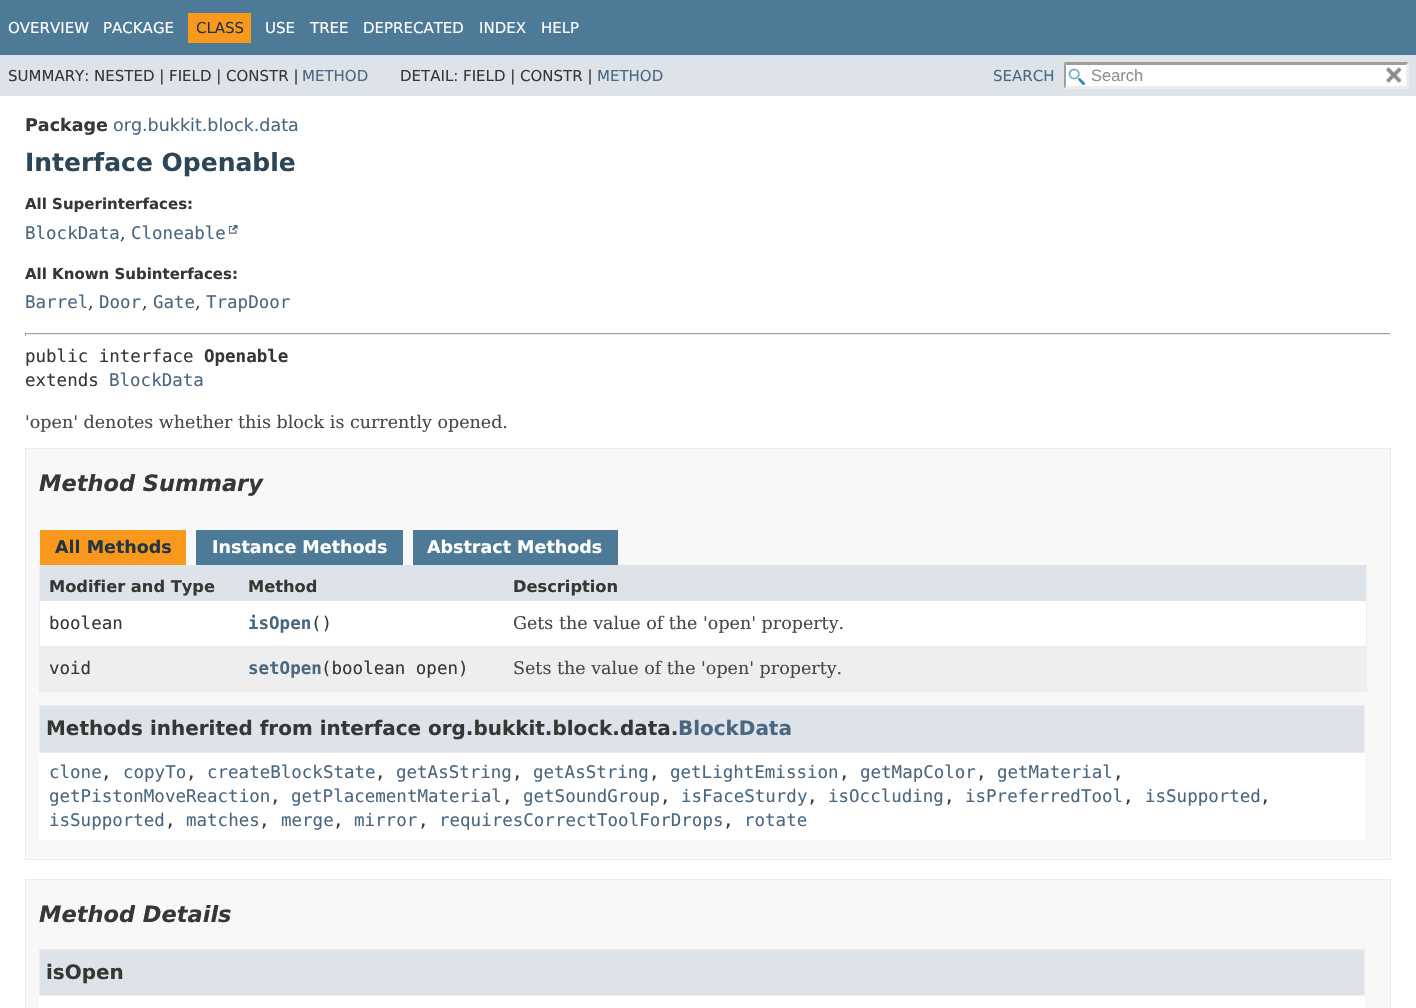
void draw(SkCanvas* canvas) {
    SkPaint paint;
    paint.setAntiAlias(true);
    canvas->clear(0xFFFFFFFF);
    paint.setColor(0xFF4D7A97);
    canvas->drawRect(SkRect::MakeXYWH(0, 0, 1416, 55), paint);
    SkFont font1(fontMgr->matchFamilyStyle("DejaVu Sans", SkFontStyle::Normal()), 15);
    font1.setSubpixel(true);
    paint.setColor(0xFFFFFFFF);
    canvas->drawString("OVERVIEW", 8, 33, font1, paint);
    canvas->drawString("PACKAGE", 103, 33, font1, paint);
    paint.setColor(0xFFF8981D);
    canvas->drawRect(SkRect::MakeXYWH(188, 13, 63, 30), paint);
    paint.setColor(0xFF253441);
    canvas->drawString("CLASS", 196, 33, font1, paint);
    paint.setColor(0xFFFFFFFF);
    canvas->drawString("USE", 265, 33, font1, paint);
    canvas->drawString("TREE", 310, 33, font1, paint);
    canvas->drawString("DEPRECATED", 363, 33, font1, paint);
    canvas->drawString("INDEX", 479, 33, font1, paint);
    canvas->drawString("HELP", 541, 33, font1, paint);
    paint.setColor(0xFFDEE3E9);
    canvas->drawRect(SkRect::MakeXYWH(0, 55, 1416, 41), paint);
    paint.setColor(0xFF353833);
    canvas->drawString("SUMMARY: NESTED | FIELD | CONSTR |", 8, 81, font1, paint);
    paint.setColor(0xFF4A6782);
    canvas->drawString("METHOD", 302, 81, font1, paint);
    paint.setColor(0xFF353833);
    canvas->drawString("DETAIL: FIELD | CONSTR |", 400, 81, font1, paint);
    paint.setColor(0xFF4A6782);
    canvas->drawString("METHOD", 597, 81, font1, paint);
    canvas->drawString("SEARCH", 993, 81, font1, paint);
    paint.setColor(0xFFFFFFFF);
    canvas->drawRect(SkRect::MakeXYWH(1064, 63, 345, 26), paint);
    canvas->drawImageRect(SkImages::DeferredFromEncodedData(SkData::MakeFromFileName("img1.png")), SkRect::MakeXYWH(1068, 68, 17, 17), SkSamplingOptions());
    paint.setColor(0xFF9E9E9E);
    canvas->drawPath(SkPathBuilder().moveTo(1064, 62).lineTo(1409, 62).lineTo(1406, 65).lineTo(1066, 65).close().detach(), paint);
    paint.setColor(0xFFEDEDED);
    canvas->drawPath(SkPathBuilder().moveTo(1409, 62.5f).lineTo(1409, 89).lineTo(1406, 86).lineTo(1406, 65).close().detach(), paint);
    canvas->drawPath(SkPathBuilder().moveTo(1409, 89).lineTo(1064, 89).lineTo(1066, 86).lineTo(1406, 86).close().detach(), paint);
    paint.setColor(0xFF9E9E9E);
    canvas->drawPath(SkPathBuilder().moveTo(1064, 89).lineTo(1064, 62.5f).lineTo(1066, 65).lineTo(1066, 86).close().detach(), paint);
    SkFont font2(fontMgr->matchFamilyStyle("Liberation Sans", SkFontStyle::Normal()), 16.5f);
    font2.setSubpixel(true);
    paint.setColor(0xFF909090);
    canvas->drawString("Search", 1091, 81, font2, paint);
    canvas->drawImageRect(SkImages::DeferredFromEncodedData(SkData::MakeFromFileName("img2.png")), SkRect::MakeXYWH(1386, 67, 16, 16), SkSamplingOptions());
    SkFont font3(fontMgr->matchFamilyStyle("DejaVu Sans", SkFontStyle::Bold()), 17.5f);
    font3.setSubpixel(true);
    paint.setColor(0xFF353833);
    canvas->drawString("Package", 25, 131, font3, paint);
    SkFont font4(fontMgr->matchFamilyStyle("DejaVu Sans", SkFontStyle::Normal()), 17.5f);
    font4.setSubpixel(true);
    paint.setColor(0xFF4A6782);
    canvas->drawString("org.bukkit.block.data", 113, 131, font4, paint);
    SkFont font5(fontMgr->matchFamilyStyle("DejaVu Sans", SkFontStyle::Bold()), 25);
    font5.setSubpixel(true);
    paint.setColor(0xFF2C4557);
    canvas->drawString("Interface Openable", 25, 171, font5, paint);
    SkFont font6(fontMgr->matchFamilyStyle("DejaVu Sans", SkFontStyle::Bold()), 15);
    font6.setSubpixel(true);
    paint.setColor(0xFF353833);
    canvas->drawString("All Superinterfaces:", 25, 209, font6, paint);
    SkFont font7(fontMgr->matchFamilyStyle("DejaVu Sans Mono", SkFontStyle::Normal()), 17.5f);
    font7.setSubpixel(true);
    paint.setColor(0xFF4A6782);
    canvas->drawString("BlockData", 25, 239, font7, paint);
    SkFont font8(fontMgr->matchFamilyStyle("DejaVu Serif", SkFontStyle::Normal()), 17.5f);
    font8.setSubpixel(true);
    paint.setColor(0xFF353833);
    canvas->drawString(",", 120, 239, font8, paint);
    paint.setColor(0xFF4A6782);
    canvas->drawString("Cloneable", 131, 239, font7, paint);
    canvas->drawImageRect(SkImages::DeferredFromEncodedData(SkData::MakeFromFileName("img3.png")), SkRect::MakeXYWH(229, 225, 9, 9), SkSamplingOptions());
    paint.setColor(0xFF353833);
    canvas->drawString("All Known Subinterfaces:", 25, 279, font6, paint);
    paint.setColor(0xFF4A6782);
    canvas->drawString("Barrel", 25, 308, font7, paint);
    paint.setColor(0xFF353833);
    canvas->drawString(",", 88, 308, font8, paint);
    paint.setColor(0xFF4A6782);
    canvas->drawString("Door", 99, 308, font7, paint);
    paint.setColor(0xFF353833);
    canvas->drawString(",", 142, 308, font8, paint);
    paint.setColor(0xFF4A6782);
    canvas->drawString("Gate", 153, 308, font7, paint);
    paint.setColor(0xFF353833);
    canvas->drawString(",", 195, 308, font8, paint);
    paint.setColor(0xFF4A6782);
    canvas->drawString("TrapDoor", 206, 308, font7, paint);
    paint.setColor(0xFF9F9F9F);
    canvas->drawRect(SkRect::MakeXYWH(25, 333, 1366, 1), paint);
    paint.setColor(0xFFEEEEEE);
    canvas->drawRect(SkRect::MakeXYWH(1390, 333, 1, 3), paint);
    canvas->drawRect(SkRect::MakeXYWH(25, 334, 1366, 1), paint);
    paint.setColor(0xFF9F9F9F);
    canvas->drawRect(SkRect::MakeXYWH(25, 333, 1, 3), paint);
    paint.setColor(0xFF353833);
    canvas->drawString("public interface", 25, 362, font7, paint);
    SkFont font9(fontMgr->matchFamilyStyle("DejaVu Sans Mono", SkFontStyle::Bold()), 17.5f);
    font9.setSubpixel(true);
    canvas->drawString("Openable", 204, 362, font9, paint);
    canvas->drawString("extends", 25, 386, font7, paint);
    paint.setColor(0xFF4A6782);
    canvas->drawString("BlockData", 109, 386, font7, paint);
    paint.setColor(0xFF474747);
    canvas->drawString("'open' denotes whether this block is currently opened.", 25, 428, font8, paint);
    paint.setColor(0xFFF8F8F8);
    canvas->drawRect(SkRect::MakeXYWH(25.5f, 448.5f, 1365, 411), paint);
    paint.setStyle(SkPaint::kStroke_Style);
    paint.setStrokeWidth(1);
    paint.setColor(0xFFEDEDED);
    canvas->drawRect(SkRect::MakeXYWH(25.5f, 448.5f, 1365, 411), paint);
    SkFont font10(fontMgr->matchFamilyStyle("DejaVu Sans", SkFontStyle::BoldItalic()), 22.5f);
    font10.setSubpixel(true);
    paint.setStyle(SkPaint::kFill_Style);
    paint.setColor(0xFF353833);
    canvas->drawString("Method Summary", 39, 491, font10, paint);
    paint.setColor(0xFFF8981D);
    canvas->drawRect(SkRect::MakeXYWH(40, 530, 146, 35), paint);
    paint.setColor(0xFF253441);
    canvas->drawString("All Methods", 55, 553, font3, paint);
    paint.setColor(0xFF4D7A97);
    canvas->drawRect(SkRect::MakeXYWH(196, 530, 207, 35), paint);
    paint.setColor(0xFFFFFFFF);
    canvas->drawString("Instance Methods", 212, 553, font3, paint);
    paint.setColor(0xFF4D7A97);
    canvas->drawRect(SkRect::MakeXYWH(413, 530, 205, 35), paint);
    paint.setColor(0xFFFFFFFF);
    canvas->drawString("Abstract Methods", 427, 553, font3, paint);
    paint.setColor(0xFFEDEDED);
    canvas->drawRect(SkRect::MakeXYWH(1366, 565, 1, 128), paint);
    canvas->drawRect(SkRect::MakeXYWH(39, 691, 1329, 1), paint);
    canvas->drawRect(SkRect::MakeXYWH(39, 565, 1, 128), paint);
    paint.setColor(0xFFDEE3E9);
    canvas->drawRect(SkRect::MakeXYWH(40, 565, 1326, 36), paint);
    SkFont font11(fontMgr->matchFamilyStyle("DejaVu Sans", SkFontStyle::Bold()), 16.25f);
    font11.setSubpixel(true);
    paint.setColor(0xFF353833);
    canvas->drawString("Modifier and Type", 49, 592, font11, paint);
    canvas->drawString("Method", 248, 592, font11, paint);
    canvas->drawString("Description", 513, 592, font11, paint);
    paint.setColor(0xFFFFFFFF);
    canvas->drawRect(SkRect::MakeXYWH(40, 601, 1326, 45), paint);
    paint.setColor(0xFF353833);
    canvas->drawString("boolean", 49, 629, font7, paint);
    paint.setColor(0xFF4A6782);
    canvas->drawString("isOpen", 248, 629, font9, paint);
    paint.setColor(0xFF353833);
    canvas->drawString("()", 311, 629, font7, paint);
    paint.setColor(0xFF474747);
    canvas->drawString("Gets the value of the 'open' property.", 513, 629, font8, paint);
    paint.setColor(0xFFEEEEEF);
    canvas->drawRect(SkRect::MakeXYWH(40, 646, 1326, 45), paint);
    paint.setColor(0xFF353833);
    canvas->drawString("void", 49, 674, font7, paint);
    paint.setColor(0xFF4A6782);
    canvas->drawString("setOpen", 248, 674, font9, paint);
    paint.setColor(0xFF353833);
    canvas->drawString("(boolean open)", 321, 674, font7, paint);
    paint.setColor(0xFF474747);
    canvas->drawString("Sets the value of the 'open' property.", 513, 674, font8, paint);
    paint.setColor(0xFFFFFFFF);
    canvas->drawRect(SkRect::MakeXYWH(39, 753, 1326, 87), paint);
    paint.setColor(0xFFDEE3E9);
    canvas->drawRect(SkRect::MakeXYWH(39.5f, 705.5f, 1325, 47), paint);
    paint.setStyle(SkPaint::kStroke_Style);
    paint.setColor(0xFFEDEDED);
    canvas->drawRect(SkRect::MakeXYWH(39.5f, 705.5f, 1325, 47), paint);
    SkFont font12(fontMgr->matchFamilyStyle("DejaVu Sans", SkFontStyle::Bold()), 19.95f);
    font12.setSubpixel(true);
    paint.setStyle(SkPaint::kFill_Style);
    paint.setColor(0xFF353833);
    canvas->drawString("Methods inherited from interface org.bukkit.block.data.", 46, 735, font12, paint);
    paint.setColor(0xFF4A6782);
    canvas->drawString("BlockData", 678, 735, font12, paint);
    canvas->drawString("clone", 49, 778, font7, paint);
    paint.setColor(0xFF353833);
    canvas->drawString(",", 101, 778, font7, paint);
    paint.setColor(0xFF4A6782);
    canvas->drawString("copyTo", 123, 778, font7, paint);
    paint.setColor(0xFF353833);
    canvas->drawString(",", 186, 778, font7, paint);
    paint.setColor(0xFF4A6782);
    canvas->drawString("createBlockState", 207, 778, font7, paint);
    paint.setColor(0xFF353833);
    canvas->drawString(",", 375, 778, font7, paint);
    paint.setColor(0xFF4A6782);
    canvas->drawString("getAsString", 396, 778, font7, paint);
    paint.setColor(0xFF353833);
    canvas->drawString(",", 512, 778, font7, paint);
    paint.setColor(0xFF4A6782);
    canvas->drawString("getAsString", 533, 778, font7, paint);
    paint.setColor(0xFF353833);
    canvas->drawString(",", 649, 778, font7, paint);
    paint.setColor(0xFF4A6782);
    canvas->drawString("getLightEmission", 670, 778, font7, paint);
    paint.setColor(0xFF353833);
    canvas->drawString(",", 839, 778, font7, paint);
    paint.setColor(0xFF4A6782);
    canvas->drawString("getMapColor", 860, 778, font7, paint);
    paint.setColor(0xFF353833);
    canvas->drawString(",", 976, 778, font7, paint);
    paint.setColor(0xFF4A6782);
    canvas->drawString("getMaterial", 997, 778, font7, paint);
    paint.setColor(0xFF353833);
    canvas->drawString(",", 1113, 778, font7, paint);
    paint.setColor(0xFF4A6782);
    canvas->drawString("getPistonMoveReaction", 49, 802, font7, paint);
    paint.setColor(0xFF353833);
    canvas->drawString(",", 270, 802, font7, paint);
    paint.setColor(0xFF4A6782);
    canvas->drawString("getPlacementMaterial", 291, 802, font7, paint);
    paint.setColor(0xFF353833);
    canvas->drawString(",", 502, 802, font7, paint);
    paint.setColor(0xFF4A6782);
    canvas->drawString("getSoundGroup", 523, 802, font7, paint);
    paint.setColor(0xFF353833);
    canvas->drawString(",", 660, 802, font7, paint);
    paint.setColor(0xFF4A6782);
    canvas->drawString("isFaceSturdy", 681, 802, font7, paint);
    paint.setColor(0xFF353833);
    canvas->drawString(",", 807, 802, font7, paint);
    paint.setColor(0xFF4A6782);
    canvas->drawString("isOccluding", 828, 802, font7, paint);
    paint.setColor(0xFF353833);
    canvas->drawString(",", 944, 802, font7, paint);
    paint.setColor(0xFF4A6782);
    canvas->drawString("isPreferredTool", 965, 802, font7, paint);
    paint.setColor(0xFF353833);
    canvas->drawString(",", 1123, 802, font7, paint);
    paint.setColor(0xFF4A6782);
    canvas->drawString("isSupported", 1145, 802, font7, paint);
    paint.setColor(0xFF353833);
    canvas->drawString(",", 1260, 802, font7, paint);
    paint.setColor(0xFF4A6782);
    canvas->drawString("isSupported", 49, 826, font7, paint);
    paint.setColor(0xFF353833);
    canvas->drawString(",", 165, 826, font7, paint);
    paint.setColor(0xFF4A6782);
    canvas->drawString("matches", 186, 826, font7, paint);
    paint.setColor(0xFF353833);
    canvas->drawString(",", 259, 826, font7, paint);
    paint.setColor(0xFF4A6782);
    canvas->drawString("merge", 281, 826, font7, paint);
    paint.setColor(0xFF353833);
    canvas->drawString(",", 333, 826, font7, paint);
    paint.setColor(0xFF4A6782);
    canvas->drawString("mirror", 354, 826, font7, paint);
    paint.setColor(0xFF353833);
    canvas->drawString(",", 418, 826, font7, paint);
    paint.setColor(0xFF4A6782);
    canvas->drawString("requiresCorrectToolForDrops", 439, 826, font7, paint);
    paint.setColor(0xFF353833);
    canvas->drawString(",", 723, 826, font7, paint);
    paint.setColor(0xFF4A6782);
    canvas->drawString("rotate", 744, 826, font7, paint);
    paint.setColor(0xFFF8F8F8);
    canvas->drawRect(SkRect::MakeXYWH(25.5f, 879.5f, 1365, 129), paint);
    paint.setStyle(SkPaint::kStroke_Style);
    paint.setColor(0xFFEDEDED);
    canvas->drawRect(SkRect::MakeXYWH(25.5f, 879.5f, 1365, 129), paint);
    paint.setStyle(SkPaint::kFill_Style);
    paint.setColor(0xFF353833);
    canvas->drawString("Method Details", 39, 922, font10, paint);
    paint.setColor(0xFFFFFFFF);
    canvas->drawRect(SkRect::MakeXYWH(39, 996, 1326, 12), paint);
    paint.setColor(0xFFDEE3E9);
    canvas->drawRect(SkRect::MakeXYWH(39.5f, 949.5f, 1325, 46), paint);
    paint.setStyle(SkPaint::kStroke_Style);
    paint.setColor(0xFFEDEDED);
    canvas->drawRect(SkRect::MakeXYWH(39.5f, 949.5f, 1325, 46), paint);
    paint.setStyle(SkPaint::kFill_Style);
    paint.setColor(0xFF353833);
    canvas->drawString("isOpen", 46, 979, font12, paint);
}
